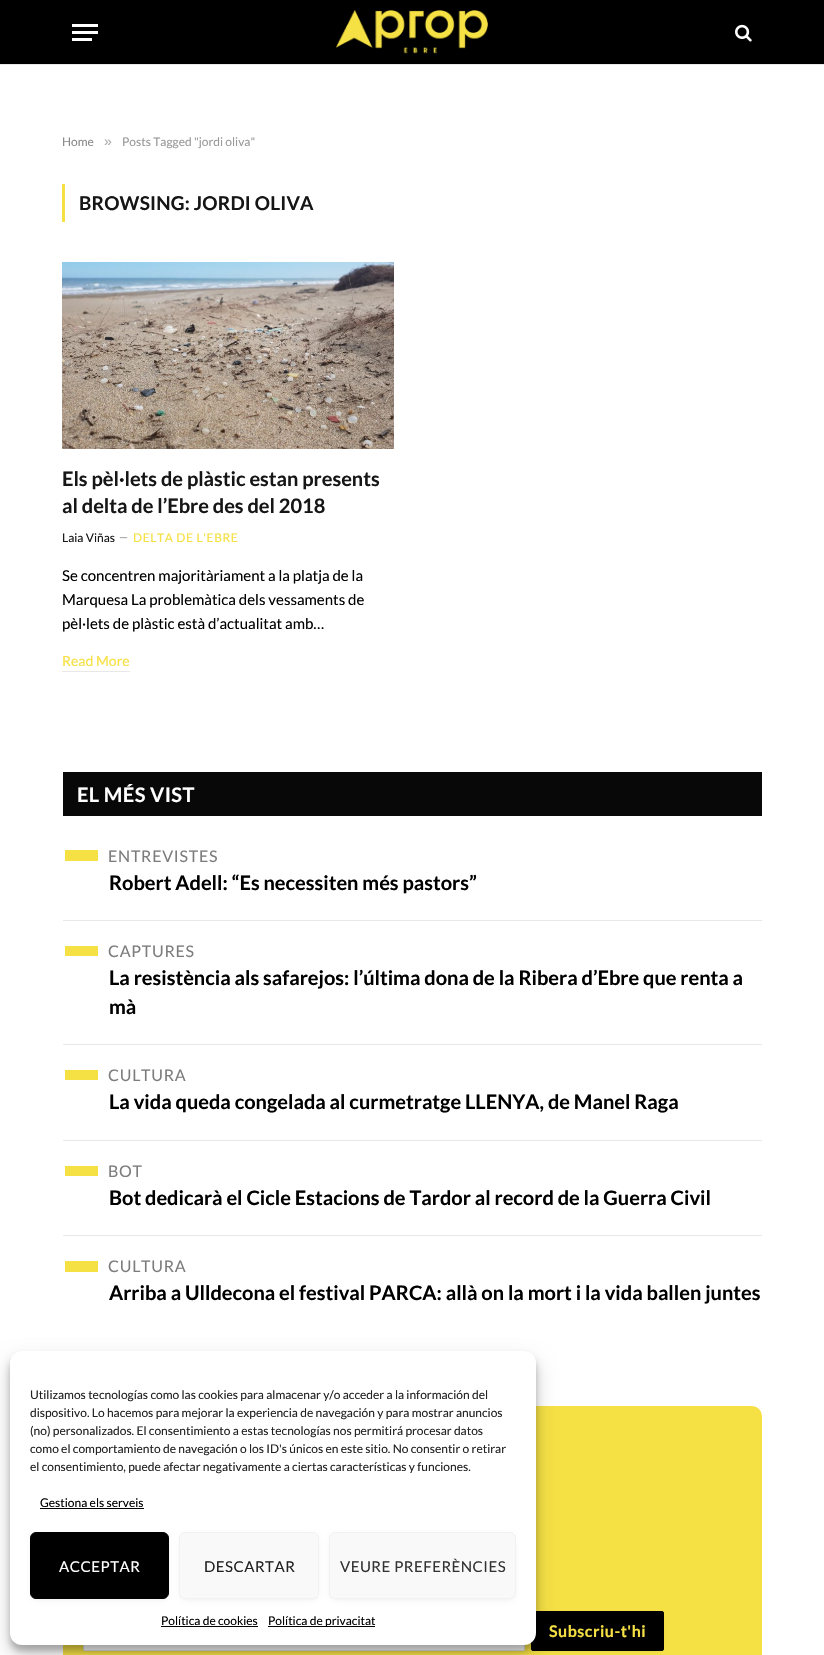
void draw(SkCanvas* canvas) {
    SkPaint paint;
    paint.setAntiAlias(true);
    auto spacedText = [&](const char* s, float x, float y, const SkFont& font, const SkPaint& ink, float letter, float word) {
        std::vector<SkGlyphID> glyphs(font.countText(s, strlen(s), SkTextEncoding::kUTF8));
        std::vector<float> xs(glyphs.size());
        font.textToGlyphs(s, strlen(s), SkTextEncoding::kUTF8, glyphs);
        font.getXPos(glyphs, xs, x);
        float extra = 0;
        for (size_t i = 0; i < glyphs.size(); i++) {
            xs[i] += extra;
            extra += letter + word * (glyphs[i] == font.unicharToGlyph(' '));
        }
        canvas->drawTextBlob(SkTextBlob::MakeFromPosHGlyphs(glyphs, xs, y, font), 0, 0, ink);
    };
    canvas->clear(0xFFFFFFFF);
    paint.setColor(0xFF000000);
    canvas->drawRect(SkRect::MakeXYWH(0, 0, 824, 64), paint);
    paint.setColor(0xFFE8E8E8);
    canvas->drawRect(SkRect::MakeXYWH(0, 64, 824, 1), paint);
    paint.setColor(0xFFFFFFFF);
    canvas->drawRect(SkRect::MakeXYWH(72, 38, 20, 3), paint);
    canvas->drawRect(SkRect::MakeXYWH(72, 24, 26, 3), paint);
    canvas->drawRect(SkRect::MakeXYWH(72, 31, 26, 3), paint);
    canvas->drawImageRect(SkImages::DeferredFromEncodedData(SkData::MakeFromFileName("img1.png")), SkRect::MakeXYWH(336, 10, 152, 44), SkSamplingOptions());
    canvas->drawImageRect(SkImages::DeferredFromEncodedData(SkData::MakeFromFileName("img2.png")), SkRect::MakeXYWH(735, 24, 17, 18), SkSamplingOptions());
    SkFont font1(fontMgr->matchFamilyStyle("Lato", SkFontStyle::Normal()), 12);
    font1.setSubpixel(true);
    paint.setColor(0xFF8A8A8A);
    canvas->drawString("Home", 62, 146, font1, paint);
    SkFont font2(fontMgr->matchFamilyStyle("Liberation Sans", SkFontStyle::Normal()), 14);
    font2.setSubpixel(true);
    paint.setColor(0xFFADADAD);
    canvas->drawString("»", 104, 146, font2, paint);
    paint.setColor(0xFF999999);
    canvas->drawString("Posts Tagged \"jordi oliva\"", 122, 146, font1, paint);
    paint.setColor(0xFFF6E145);
    canvas->drawRect(SkRect::MakeXYWH(62, 184, 3, 38), paint);
    SkFont font3(fontMgr->matchFamilyStyle("Lato", SkFontStyle::Bold()), 19);
    font3.setSubpixel(true);
    paint.setColor(0xFF161616);
    spacedText("BROWSING: JORDI OLIVA", 79, 210, font3, paint, 0.2f, 0);
    canvas->drawImageRect(SkImages::DeferredFromEncodedData(SkData::MakeFromFileName("img3.png")), SkRect::MakeXYWH(62, 262, 332, 187), SkSamplingOptions());
    SkFont font4(fontMgr->matchFamilyStyle("Lato", SkFontStyle::Bold()), 20);
    font4.setSubpixel(true);
    canvas->drawString("Els pèl·lets de plàstic estan presents", 62, 486, font4, paint);
    canvas->drawString("al delta de l’Ebre des del 2018", 62, 513, font4, paint);
    canvas->drawString("Laia Viñas", 62, 542, font1, paint);
    SkFont font5(fontMgr->matchFamilyStyle("Lato", SkFontStyle::Normal()), 11);
    font5.setSubpixel(true);
    paint.setColor(0xFF8A8A8A);
    canvas->drawString("—", 119, 541, font5, paint);
    paint.setColor(0xFFF6E145);
    spacedText("DELTA DE L'EBRE", 133, 542, font1, paint, 0.6f, 0);
    SkFont font6(fontMgr->matchFamilyStyle("Lato", SkFontStyle::Normal()), 15);
    font6.setSubpixel(true);
    paint.setColor(0xFF000000);
    canvas->drawString("Se concentren majoritàriament a la platja de la", 62, 581, font6, paint);
    canvas->drawString("Marquesa La problemàtica dels vessaments de", 62, 605, font6, paint);
    canvas->drawString("pèl·lets de plàstic està d’actualitat amb…", 62, 629, font6, paint);
    paint.setColor(0xFFE8E8E8);
    canvas->drawRect(SkRect::MakeXYWH(62, 671, 68, 1), paint);
    SkFont font7(fontMgr->matchFamilyStyle("Lato", SkFontStyle::Normal()), 14);
    font7.setSubpixel(true);
    paint.setColor(0xFFF6E145);
    canvas->drawString("Read More", 62, 666, font7, paint);
    paint.setColor(0xFF080808);
    canvas->drawRect(SkRect::MakeXYWH(63, 772, 699, 44), paint);
    paint.setColor(0xFFFFFFFF);
    spacedText("EL MÉS VIST", 77, 802, font4, paint, 0.4f, 0);
    paint.setColor(0xFFF6E145);
    canvas->drawRect(SkRect::MakeXYWH(65, 850, 33, 11), paint);
    SkFont font8(fontMgr->matchFamilyStyle("Lato", SkFontStyle::Normal()), 16);
    font8.setSubpixel(true);
    paint.setColor(0xFF7C7C7C);
    spacedText("ENTREVISTES", 108, 862, font8, paint, 0.75f, 0);
    paint.setColor(0xFF000000);
    canvas->drawString("Robert Adell: “Es necessiten més pastors”", 109, 890, font4, paint);
    paint.setColor(0xFFE8E8E8);
    canvas->drawRect(SkRect::MakeXYWH(63, 920, 699, 1), paint);
    paint.setColor(0xFFF6E145);
    canvas->drawRect(SkRect::MakeXYWH(65, 946, 33, 10), paint);
    paint.setColor(0xFF7C7C7C);
    spacedText("CAPTURES", 108, 957, font8, paint, 0.75f, 0);
    paint.setColor(0xFF000000);
    canvas->drawString("La resistència als safarejos: l’última dona de la Ribera d’Ebre que renta a", 109, 985, font4, paint);
    canvas->drawString("mà", 109, 1014, font4, paint);
    paint.setColor(0xFFE8E8E8);
    canvas->drawRect(SkRect::MakeXYWH(63, 1044, 699, 1), paint);
    paint.setColor(0xFFF6E145);
    canvas->drawRect(SkRect::MakeXYWH(65, 1070, 33, 10), paint);
    paint.setColor(0xFF7C7C7C);
    spacedText("CULTURA", 108, 1081, font8, paint, 0.75f, 0);
    paint.setColor(0xFF000000);
    canvas->drawString("La vida queda congelada al curmetratge LLENYA, de Manel Raga", 109, 1109, font4, paint);
    paint.setColor(0xFFE8E8E8);
    canvas->drawRect(SkRect::MakeXYWH(63, 1140, 699, 1), paint);
    paint.setColor(0xFFF6E145);
    canvas->drawRect(SkRect::MakeXYWH(65, 1166, 33, 10), paint);
    paint.setColor(0xFF7C7C7C);
    spacedText("BOT", 108, 1177, font8, paint, 0.75f, 0);
    paint.setColor(0xFF000000);
    canvas->drawString("Bot dedicarà el Cicle Estacions de Tardor al record de la Guerra Civil", 109, 1205, font4, paint);
    paint.setColor(0xFFE8E8E8);
    canvas->drawRect(SkRect::MakeXYWH(63, 1235, 699, 1), paint);
    paint.setColor(0xFFF6E145);
    canvas->drawRect(SkRect::MakeXYWH(65, 1261, 33, 11), paint);
    paint.setColor(0xFF7C7C7C);
    spacedText("CULTURA", 108, 1272, font8, paint, 0.75f, 0);
    paint.setColor(0xFF000000);
    canvas->drawString("Arriba a Ulldecona el festival PARCA: allà on la mort i la vida ballen juntes", 109, 1300, font4, paint);
    paint.setColor(0xFFF6E145);
    canvas->drawRoundRect(SkRect::MakeXYWH(63, 1406, 699, 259), 10, 10, paint);
    paint.setColor(0x1A000000);
    paint.setMaskFilter(SkMaskFilter::MakeBlur(kNormal_SkBlurStyle, 3.5f));
    canvas->drawRect(SkRect::MakeXYWH(87, 1619, 434, 30), paint);
    paint.setMaskFilter(nullptr);
    paint.setColor(0xFFFFFFFF);
    canvas->drawRoundRect(SkRect::MakeXYWH(83.5f, 1613.5f, 441, 37), 1.5f, 1.5f, paint);
    paint.setStyle(SkPaint::kStroke_Style);
    paint.setStrokeWidth(1);
    paint.setColor(0xFFDDDDDD);
    canvas->drawRoundRect(SkRect::MakeXYWH(83.5f, 1613.5f, 441, 37), 1.5f, 1.5f, paint);
    paint.setStyle(SkPaint::kFill_Style);
    paint.setColor(0x29000000);
    paint.setMaskFilter(SkMaskFilter::MakeBlur(kNormal_SkBlurStyle, 3.5f));
    canvas->drawRect(SkRect::MakeXYWH(535, 1617, 125, 32), paint);
    paint.setMaskFilter(nullptr);
    paint.setColor(0xFF000000);
    canvas->drawRoundRect(SkRect::MakeXYWH(531.5f, 1611.5f, 132, 39), 1.5f, 1.5f, paint);
    paint.setStyle(SkPaint::kStroke_Style);
    canvas->drawRoundRect(SkRect::MakeXYWH(531.5f, 1611.5f, 132, 39), 1.5f, 1.5f, paint);
    SkFont font9(fontMgr->matchFamilyStyle("Lato", SkFontStyle::Bold()), 16);
    font9.setSubpixel(true);
    paint.setStyle(SkPaint::kFill_Style);
    paint.setColor(0xFFF6E145);
    spacedText("Subscriu-t'hi", 549, 1637, font9, paint, 0.5f, 0);
    paint.setColor(0x3B000000);
    paint.setMaskFilter(SkMaskFilter::MakeBlur(kNormal_SkBlurStyle, 3));
    canvas->drawRoundRect(SkRect::MakeXYWH(10, 1357, 526, 294), 12, 12, paint);
    paint.setMaskFilter(nullptr);
    paint.setColor(0x30000000);
    paint.setMaskFilter(SkMaskFilter::MakeBlur(kNormal_SkBlurStyle, 10));
    canvas->drawRoundRect(SkRect::MakeXYWH(10, 1361, 526, 294), 12, 12, paint);
    paint.setMaskFilter(nullptr);
    paint.setColor(0xFFFFFFFF);
    canvas->drawRoundRect(SkRect::MakeXYWH(10, 1351, 526, 294), 12, 12, paint);
    paint.setColor(0xFF222222);
    canvas->drawString("Utilizamos tecnologías como las cookies para almacenar y/o acceder a la información del", 30, 1399, font1, paint);
    canvas->drawString("dispositivo. Lo hacemos para mejorar la experiencia de navegación y para mostrar anuncios", 30, 1417, font1, paint);
    canvas->drawString("(no) personalizados. El consentimiento a estas tecnologías nos permitirá procesar datos", 30, 1435, font1, paint);
    canvas->drawString("como el comportamiento de navegación o los ID's únicos en este sitio. No consentir o retirar", 30, 1453, font1, paint);
    canvas->drawString("el consentimiento, puede afectar negativamente a ciertas características y funciones.", 30, 1471, font1, paint);
    paint.setColor(0xFF000000);
    canvas->drawString("Gestiona els serveis", 40, 1507, font1, paint);
    canvas->drawRect(SkRect::MakeXYWH(40, 1508, 104, 1), paint);
    paint.setColor(0x29000000);
    paint.setMaskFilter(SkMaskFilter::MakeBlur(kNormal_SkBlurStyle, 3.5f));
    canvas->drawRoundRect(SkRect::MakeXYWH(34, 1538, 131, 59), 2, 2, paint);
    paint.setMaskFilter(nullptr);
    paint.setColor(0xFF000000);
    canvas->drawRoundRect(SkRect::MakeXYWH(30.5f, 1532.5f, 138, 66), 5.5f, 5.5f, paint);
    paint.setStyle(SkPaint::kStroke_Style);
    canvas->drawRoundRect(SkRect::MakeXYWH(30.5f, 1532.5f, 138, 66), 5.5f, 5.5f, paint);
    paint.setStyle(SkPaint::kFill_Style);
    paint.setColor(0xFFFFFFFF);
    spacedText("ACCEPTAR", 59, 1572, font6, paint, 0.5f, 0);
    paint.setColor(0x29000000);
    paint.setMaskFilter(SkMaskFilter::MakeBlur(kNormal_SkBlurStyle, 3.5f));
    canvas->drawRoundRect(SkRect::MakeXYWH(183, 1538, 132, 59), 2, 2, paint);
    paint.setMaskFilter(nullptr);
    paint.setColor(0xFFF9F9F9);
    canvas->drawRoundRect(SkRect::MakeXYWH(179.5f, 1532.5f, 139, 66), 5.5f, 5.5f, paint);
    paint.setStyle(SkPaint::kStroke_Style);
    paint.setColor(0xFFF2F2F2);
    canvas->drawRoundRect(SkRect::MakeXYWH(179.5f, 1532.5f, 139, 66), 5.5f, 5.5f, paint);
    paint.setStyle(SkPaint::kFill_Style);
    paint.setColor(0xFF222222);
    spacedText("DESCARTAR", 204, 1572, font6, paint, 0.5f, 0);
    paint.setColor(0x29000000);
    paint.setMaskFilter(SkMaskFilter::MakeBlur(kNormal_SkBlurStyle, 3.5f));
    canvas->drawRoundRect(SkRect::MakeXYWH(333, 1538, 179, 59), 2, 2, paint);
    paint.setMaskFilter(nullptr);
    paint.setColor(0xFFF9F9F9);
    canvas->drawRoundRect(SkRect::MakeXYWH(329.5f, 1532.5f, 186, 66), 5.5f, 5.5f, paint);
    paint.setStyle(SkPaint::kStroke_Style);
    paint.setColor(0xFFF2F2F2);
    canvas->drawRoundRect(SkRect::MakeXYWH(329.5f, 1532.5f, 186, 66), 5.5f, 5.5f, paint);
    paint.setStyle(SkPaint::kFill_Style);
    paint.setColor(0xFF333333);
    spacedText("VEURE PREFERÈNCIES", 340, 1572, font6, paint, 0.5f, 0);
    paint.setColor(0xFF000000);
    canvas->drawString("Política de cookies", 161, 1625, font1, paint);
    canvas->drawRect(SkRect::MakeXYWH(161, 1626, 97, 1), paint);
    canvas->drawRect(SkRect::MakeXYWH(268, 1626, 107, 1), paint);
    canvas->drawString("Política de privacitat", 268, 1625, font1, paint);
}
